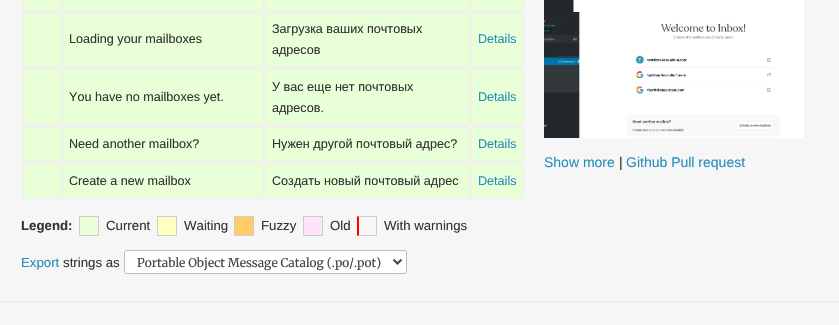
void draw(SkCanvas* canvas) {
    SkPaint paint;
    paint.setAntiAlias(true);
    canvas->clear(0xFFF6F6F6);
    paint.setColor(0xFFE9FFD8);
    canvas->drawRect(SkRect::MakeXYWH(23, 0, 500, 11), paint);
    paint.setStyle(SkPaint::kStroke_Style);
    paint.setStrokeWidth(1);
    paint.setColor(0xFFEEEEEE);
    canvas->drawRect(SkRect::MakeXYWH(22.5f, -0.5f, 38, 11), paint);
    canvas->drawRect(SkRect::MakeXYWH(62.5f, -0.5f, 201, 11), paint);
    canvas->drawRect(SkRect::MakeXYWH(265.5f, -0.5f, 204, 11), paint);
    canvas->drawRect(SkRect::MakeXYWH(471.5f, -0.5f, 52, 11), paint);
    paint.setStyle(SkPaint::kFill_Style);
    paint.setColor(0xFFE9FFD8);
    canvas->drawRect(SkRect::MakeXYWH(23, 12, 500, 56), paint);
    paint.setStyle(SkPaint::kStroke_Style);
    paint.setColor(0xFFEEEEEE);
    canvas->drawRect(SkRect::MakeXYWH(22.5f, 12.5f, 38, 55), paint);
    canvas->drawRect(SkRect::MakeXYWH(62.5f, 12.5f, 201, 55), paint);
    SkFont font1(fontMgr->matchFamilyStyle("Liberation Sans", SkFontStyle::Normal()), 12.6f);
    font1.setSubpixel(true);
    paint.setStyle(SkPaint::kFill_Style);
    paint.setColor(0xFF333333);
    canvas->drawString("Loading your mailboxes", 69, 43, font1, paint);
    paint.setStyle(SkPaint::kStroke_Style);
    paint.setColor(0xFFEEEEEE);
    canvas->drawRect(SkRect::MakeXYWH(265.5f, 12.5f, 204, 55), paint);
    paint.setStyle(SkPaint::kFill_Style);
    paint.setColor(0xFF333333);
    canvas->drawString("Загрузка ваших почтовых", 272, 33, font1, paint);
    canvas->drawString("адресов", 272, 54, font1, paint);
    paint.setStyle(SkPaint::kStroke_Style);
    paint.setColor(0xFFEEEEEE);
    canvas->drawRect(SkRect::MakeXYWH(471.5f, 12.5f, 52, 55), paint);
    paint.setStyle(SkPaint::kFill_Style);
    paint.setColor(0xFF278DBC);
    canvas->drawString("Details", 478, 43, font1, paint);
    paint.setColor(0xFFE9FFD8);
    canvas->drawRect(SkRect::MakeXYWH(23, 69, 500, 57), paint);
    paint.setStyle(SkPaint::kStroke_Style);
    paint.setColor(0xFFEEEEEE);
    canvas->drawRect(SkRect::MakeXYWH(22.5f, 69.5f, 38, 56), paint);
    canvas->drawRect(SkRect::MakeXYWH(62.5f, 69.5f, 201, 56), paint);
    paint.setStyle(SkPaint::kFill_Style);
    paint.setColor(0xFF333333);
    canvas->drawString("You have no mailboxes yet.", 69, 101, font1, paint);
    paint.setStyle(SkPaint::kStroke_Style);
    paint.setColor(0xFFEEEEEE);
    canvas->drawRect(SkRect::MakeXYWH(265.5f, 69.5f, 204, 56), paint);
    paint.setStyle(SkPaint::kFill_Style);
    paint.setColor(0xFF333333);
    canvas->drawString("У вас еще нет почтовых", 272, 91, font1, paint);
    canvas->drawString("адресов.", 272, 112, font1, paint);
    paint.setStyle(SkPaint::kStroke_Style);
    paint.setColor(0xFFEEEEEE);
    canvas->drawRect(SkRect::MakeXYWH(471.5f, 69.5f, 52, 56), paint);
    paint.setStyle(SkPaint::kFill_Style);
    paint.setColor(0xFF278DBC);
    canvas->drawString("Details", 478, 101, font1, paint);
    paint.setColor(0xFFE9FFD8);
    canvas->drawRect(SkRect::MakeXYWH(23, 127, 500, 35), paint);
    paint.setStyle(SkPaint::kStroke_Style);
    paint.setColor(0xFFEEEEEE);
    canvas->drawRect(SkRect::MakeXYWH(22.5f, 127.5f, 38, 34), paint);
    canvas->drawRect(SkRect::MakeXYWH(62.5f, 127.5f, 201, 34), paint);
    paint.setStyle(SkPaint::kFill_Style);
    paint.setColor(0xFF333333);
    canvas->drawString("Need another mailbox?", 69, 148, font1, paint);
    paint.setStyle(SkPaint::kStroke_Style);
    paint.setColor(0xFFEEEEEE);
    canvas->drawRect(SkRect::MakeXYWH(265.5f, 127.5f, 204, 34), paint);
    paint.setStyle(SkPaint::kFill_Style);
    paint.setColor(0xFF333333);
    canvas->drawString("Нужен другой почтовый адрес?", 272, 148, font1, paint);
    paint.setStyle(SkPaint::kStroke_Style);
    paint.setColor(0xFFEEEEEE);
    canvas->drawRect(SkRect::MakeXYWH(471.5f, 127.5f, 52, 34), paint);
    paint.setStyle(SkPaint::kFill_Style);
    paint.setColor(0xFF278DBC);
    canvas->drawString("Details", 478, 148, font1, paint);
    paint.setColor(0xFFE9FFD8);
    canvas->drawRect(SkRect::MakeXYWH(23, 163, 500, 36), paint);
    paint.setStyle(SkPaint::kStroke_Style);
    paint.setColor(0xFFEEEEEE);
    canvas->drawRect(SkRect::MakeXYWH(22.5f, 163.5f, 38, 35), paint);
    canvas->drawRect(SkRect::MakeXYWH(62.5f, 163.5f, 201, 35), paint);
    paint.setStyle(SkPaint::kFill_Style);
    paint.setColor(0xFF333333);
    canvas->drawString("Create a new mailbox", 69, 185, font1, paint);
    paint.setStyle(SkPaint::kStroke_Style);
    paint.setColor(0xFFEEEEEE);
    canvas->drawRect(SkRect::MakeXYWH(265.5f, 163.5f, 204, 35), paint);
    paint.setStyle(SkPaint::kFill_Style);
    paint.setColor(0xFF333333);
    canvas->drawString("Создать новый почтовый адрес", 272, 185, font1, paint);
    paint.setStyle(SkPaint::kStroke_Style);
    paint.setColor(0xFFEEEEEE);
    canvas->drawRect(SkRect::MakeXYWH(471.5f, 163.5f, 52, 35), paint);
    paint.setStyle(SkPaint::kFill_Style);
    paint.setColor(0xFF278DBC);
    canvas->drawString("Details", 478, 185, font1, paint);
    SkFont font2(fontMgr->matchFamilyStyle("Liberation Sans", SkFontStyle::Bold()), 13.25f);
    font2.setSubpixel(true);
    paint.setColor(0xFF333333);
    canvas->drawString("Legend:", 21, 230, font2, paint);
    paint.setColor(0xFFE9FFD8);
    canvas->drawRect(SkRect::MakeXYWH(79.5f, 216.5f, 19, 19), paint);
    paint.setStyle(SkPaint::kStroke_Style);
    paint.setColor(0xFFCCCCCC);
    canvas->drawRect(SkRect::MakeXYWH(79.5f, 216.5f, 19, 19), paint);
    SkFont font3(fontMgr->matchFamilyStyle("Liberation Sans", SkFontStyle::Normal()), 13.25f);
    font3.setSubpixel(true);
    paint.setStyle(SkPaint::kFill_Style);
    paint.setColor(0xFF333333);
    canvas->drawString("Current", 106, 230, font3, paint);
    paint.setColor(0xFFFFFFC2);
    canvas->drawRect(SkRect::MakeXYWH(157.5f, 216.5f, 19, 19), paint);
    paint.setStyle(SkPaint::kStroke_Style);
    paint.setColor(0xFFCCCCCC);
    canvas->drawRect(SkRect::MakeXYWH(157.5f, 216.5f, 19, 19), paint);
    paint.setStyle(SkPaint::kFill_Style);
    paint.setColor(0xFF333333);
    canvas->drawString("Waiting", 184, 230, font3, paint);
    paint.setColor(0xFFFFCC66);
    canvas->drawRect(SkRect::MakeXYWH(234.5f, 216.5f, 19, 19), paint);
    paint.setStyle(SkPaint::kStroke_Style);
    paint.setColor(0xFFCCCCCC);
    canvas->drawRect(SkRect::MakeXYWH(234.5f, 216.5f, 19, 19), paint);
    paint.setStyle(SkPaint::kFill_Style);
    paint.setColor(0xFF333333);
    canvas->drawString("Fuzzy", 261, 230, font3, paint);
    paint.setColor(0xFFFEE4F8);
    canvas->drawRect(SkRect::MakeXYWH(303.5f, 216.5f, 19, 19), paint);
    paint.setStyle(SkPaint::kStroke_Style);
    paint.setColor(0xFFCCCCCC);
    canvas->drawRect(SkRect::MakeXYWH(303.5f, 216.5f, 19, 19), paint);
    paint.setStyle(SkPaint::kFill_Style);
    paint.setColor(0xFF333333);
    canvas->drawString("Old", 330, 230, font3, paint);
    paint.setColor(0xFFCCCCCC);
    canvas->drawPath(SkPathBuilder().moveTo(357, 216).lineTo(377, 216).lineTo(376, 217).lineTo(359, 217).close().detach(), paint);
    canvas->drawRect(SkRect::MakeXYWH(376, 216, 1, 20), paint);
    canvas->drawPath(SkPathBuilder().moveTo(377, 236).lineTo(357, 236).lineTo(359, 235).lineTo(376, 235).close().detach(), paint);
    paint.setColor(0xFFFF0000);
    canvas->drawPath(SkPathBuilder().moveTo(357, 236).lineTo(357, 216).lineTo(359, 217).lineTo(359, 235).close().detach(), paint);
    paint.setColor(0xFF333333);
    canvas->drawString("With warnings", 384, 230, font3, paint);
    paint.setColor(0xFF278DBC);
    canvas->drawString("Export", 21, 267, font3, paint);
    paint.setColor(0xFF333333);
    canvas->drawString("strings as", 63, 267, font3, paint);
    paint.setColor(0xFFFFFFFF);
    canvas->drawRoundRect(SkRect::MakeXYWH(124.5f, 250.5f, 282, 23), 2.5f, 2.5f, paint);
    paint.setStyle(SkPaint::kStroke_Style);
    paint.setColor(0xFFBBBBBB);
    canvas->drawRoundRect(SkRect::MakeXYWH(124.5f, 250.5f, 282, 23), 2.5f, 2.5f, paint);
    paint.setStrokeWidth(2);
    paint.setColor(0xFF464646);
    canvas->drawPath(SkPathBuilder().moveTo(393.5f, 259.5f).lineTo(397.5f, 263.5f).lineTo(401.5f, 259.5f).detach(), paint);
    SkFont font4(fontMgr->matchFamilyStyle("Merriweather", SkFontStyle::Normal()), 12);
    font4.setSubpixel(true);
    paint.setStyle(SkPaint::kFill_Style);
    canvas->drawString("Portable Object Message Catalog (.po/.pot)", 137, 267, font4, paint);
    canvas->drawImageRect(SkImages::DeferredFromEncodedData(SkData::MakeFromFileName("img1.png")), SkRect::MakeXYWH(544, 0, 260, 12), SkSamplingOptions());
    canvas->drawImageRect(SkImages::DeferredFromEncodedData(SkData::MakeFromFileName("img2.png")), SkRect::MakeXYWH(544, 12, 260, 126), SkSamplingOptions());
    SkFont font5(fontMgr->matchFamilyStyle("Liberation Sans", SkFontStyle::Normal()), 14);
    font5.setSubpixel(true);
    paint.setColor(0xFF278DBC);
    canvas->drawString("Show more", 544, 167, font5, paint);
    paint.setColor(0xFF333333);
    canvas->drawString("|", 619, 167, font5, paint);
    paint.setColor(0xFF278DBC);
    canvas->drawString("Github Pull request", 626, 167, font5, paint);
    paint.setColor(0xFFEAEAEA);
    canvas->drawRect(SkRect::MakeXYWH(0, 301, 839, 1), paint);
}
